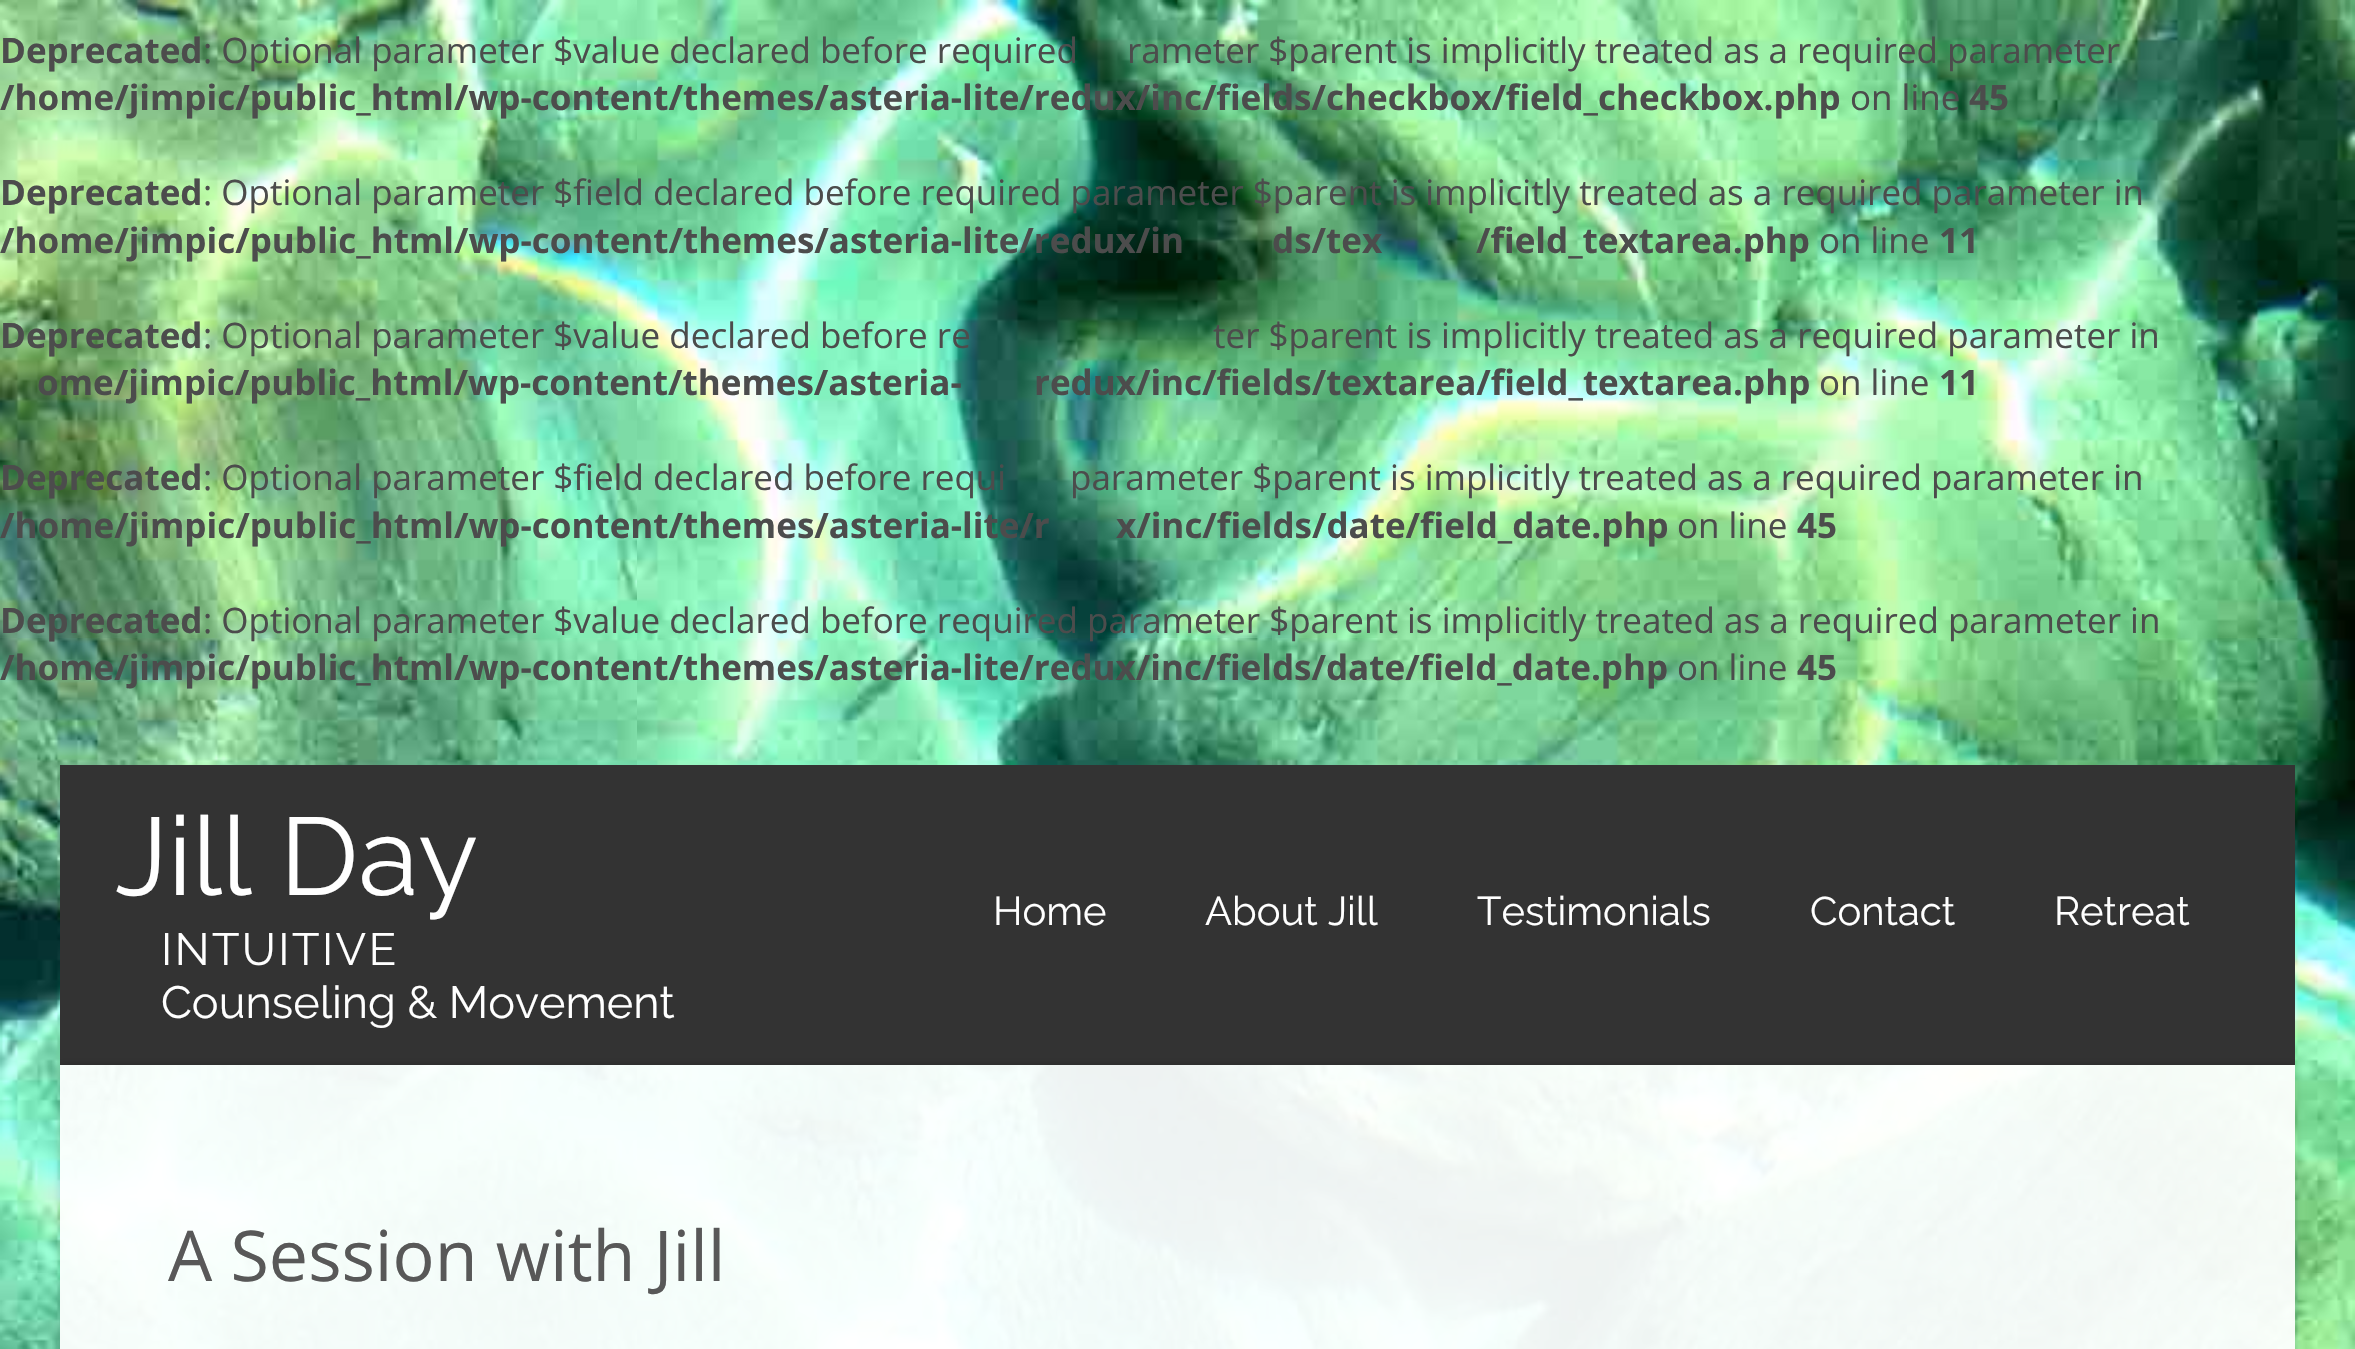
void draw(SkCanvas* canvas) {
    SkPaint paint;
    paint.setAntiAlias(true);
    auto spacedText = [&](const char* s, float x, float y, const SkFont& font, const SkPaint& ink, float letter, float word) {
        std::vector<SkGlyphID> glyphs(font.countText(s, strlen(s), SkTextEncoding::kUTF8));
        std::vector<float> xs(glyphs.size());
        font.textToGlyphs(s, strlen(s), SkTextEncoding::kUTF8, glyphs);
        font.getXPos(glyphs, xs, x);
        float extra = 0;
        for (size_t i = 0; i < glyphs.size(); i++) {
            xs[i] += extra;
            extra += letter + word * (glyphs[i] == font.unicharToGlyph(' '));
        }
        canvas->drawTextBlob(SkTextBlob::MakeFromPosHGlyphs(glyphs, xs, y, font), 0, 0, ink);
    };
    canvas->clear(0xFFFFFFFF);
    canvas->drawImageRect(SkImages::DeferredFromEncodedData(SkData::MakeFromFileName("img1.png")), SkRect::MakeXYWH(0, 0, 2355, 1349), SkSamplingOptions());
    SkFont font1(fontMgr->matchFamilyStyle("Open Sans", SkFontStyle::Bold()), 35);
    font1.setSubpixel(true);
    paint.setColor(0xFF4C4C4C);
    canvas->drawString("Deprecated", 0, 63, font1, paint);
    SkFont font2(fontMgr->matchFamilyStyle("Open Sans", SkFontStyle::Normal()), 35);
    font2.setSubpixel(true);
    canvas->drawString(": Optional parameter $value declared before required", 203, 63, font2, paint);
    canvas->drawString("rameter $parent is implicitly treated as a required parameter", 1127, 63, font2, paint);
    canvas->drawString("/home/jimpic/public_html/wp-content/themes/asteria-lite/redux/inc/fields/checkbox/field_checkbox.php", 0, 110, font1, paint);
    canvas->drawString("on line", 1850, 110, font2, paint);
    canvas->drawString("45", 1969, 110, font1, paint);
    canvas->drawString("Deprecated", 0, 205, font1, paint);
    canvas->drawString(": Optional parameter $field declared before required parameter $parent is implicitly treated as a required parameter in", 203, 205, font2, paint);
    canvas->drawString("/home/jimpic/public_html/wp-content/themes/asteria-lite/redux/in", 0, 253, font1, paint);
    canvas->drawString("ds/tex", 1272, 253, font1, paint);
    canvas->drawString("/field_textarea.php", 1476, 253, font1, paint);
    canvas->drawString("on line", 1819, 253, font2, paint);
    canvas->drawString("11", 1939, 253, font1, paint);
    canvas->drawString("Deprecated", 0, 348, font1, paint);
    canvas->drawString(": Optional parameter $value declared before re", 203, 348, font2, paint);
    canvas->drawString("ter $parent is implicitly treated as a required parameter in", 1213, 348, font2, paint);
    canvas->drawString("ome/jimpic/public_html/wp-content/themes/asteria-", 37, 395, font1, paint);
    canvas->drawString("redux/inc/fields/textarea/field_textarea.php", 1034, 395, font1, paint);
    canvas->drawString("on line", 1819, 395, font2, paint);
    canvas->drawString("11", 1939, 395, font1, paint);
    canvas->drawString("Deprecated", 0, 490, font1, paint);
    canvas->drawString(": Optional parameter $field declared before requi", 203, 490, font2, paint);
    canvas->drawString("parameter $parent is implicitly treated as a required parameter in", 1070, 490, font2, paint);
    canvas->drawString("/home/jimpic/public_html/wp-content/themes/asteria-lite/r", 0, 538, font1, paint);
    canvas->drawString("x/inc/fields/date/field_date.php", 1116, 538, font1, paint);
    canvas->drawString("on line", 1677, 538, font2, paint);
    canvas->drawString("45", 1797, 538, font1, paint);
    canvas->drawString("Deprecated", 0, 633, font1, paint);
    canvas->drawString(": Optional parameter $value declared before required parameter $parent is implicitly treated as a required parameter in", 203, 633, font2, paint);
    canvas->drawString("/home/jimpic/public_html/wp-content/themes/asteria-lite/redux/inc/fields/date/field_date.php", 0, 680, font1, paint);
    canvas->drawString("on line", 1677, 680, font2, paint);
    canvas->drawString("45", 1797, 680, font1, paint);
    paint.setColor(0xFF333333);
    canvas->drawRect(SkRect::MakeXYWH(60, 765, 2235, 300), paint);
    SkFont font3(fontMgr->matchFamilyStyle("Raleway", SkFontStyle(100, SkFontStyle::kNormal_Width, SkFontStyle::kUpright_Slant)), 110);
    font3.setSubpixel(true);
    paint.setColor(0xFFFFFFFF);
    canvas->drawString("Jill Day", 115, 895, font3, paint);
    SkFont font4(fontMgr->matchFamilyStyle("Raleway", SkFontStyle(100, SkFontStyle::kNormal_Width, SkFontStyle::kUpright_Slant)), 45);
    font4.setSubpixel(true);
    spacedText("INTUITIVE", 161, 965, font4, paint, 2.5f, 0);
    canvas->drawString("Counseling & Movement", 161, 1018, font4, paint);
    SkFont font5(fontMgr->matchFamilyStyle("Raleway", SkFontStyle(100, SkFontStyle::kNormal_Width, SkFontStyle::kUpright_Slant)), 40);
    font5.setSubpixel(true);
    canvas->drawString("Home", 993, 925, font5, paint);
    canvas->drawString("About Jill", 1205, 925, font5, paint);
    canvas->drawString("Testimonials", 1477, 925, font5, paint);
    canvas->drawString("Contact", 1810, 925, font5, paint);
    canvas->drawString("Retreat", 2054, 925, font5, paint);
    canvas->save();
    canvas->clipPath(SkPathBuilder(SkPathFillType::kEvenOdd).moveTo(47, 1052).lineTo(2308, 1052).lineTo(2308, 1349).lineTo(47, 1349).close().moveTo(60, 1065).lineTo(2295, 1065).lineTo(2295, 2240).lineTo(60, 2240).close().detach(), true);
    paint.setColor(0x30000000);
    paint.setMaskFilter(SkMaskFilter::MakeBlur(kNormal_SkBlurStyle, 4));
    canvas->drawRect(SkRect::MakeXYWH(60, 1065, 2235, 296), paint);
    paint.setMaskFilter(nullptr);
    canvas->restore();
    paint.setColor(0xEDFFFFFF);
    canvas->drawRect(SkRect::MakeXYWH(60, 1065, 2235, 284), paint);
    SkFont font6(fontMgr->matchFamilyStyle("Open Sans", SkFontStyle::Normal()), 70);
    font6.setSubpixel(true);
    paint.setColor(0xFF585858);
    canvas->drawString("A Session with Jill", 168, 1281, font6, paint);
}
